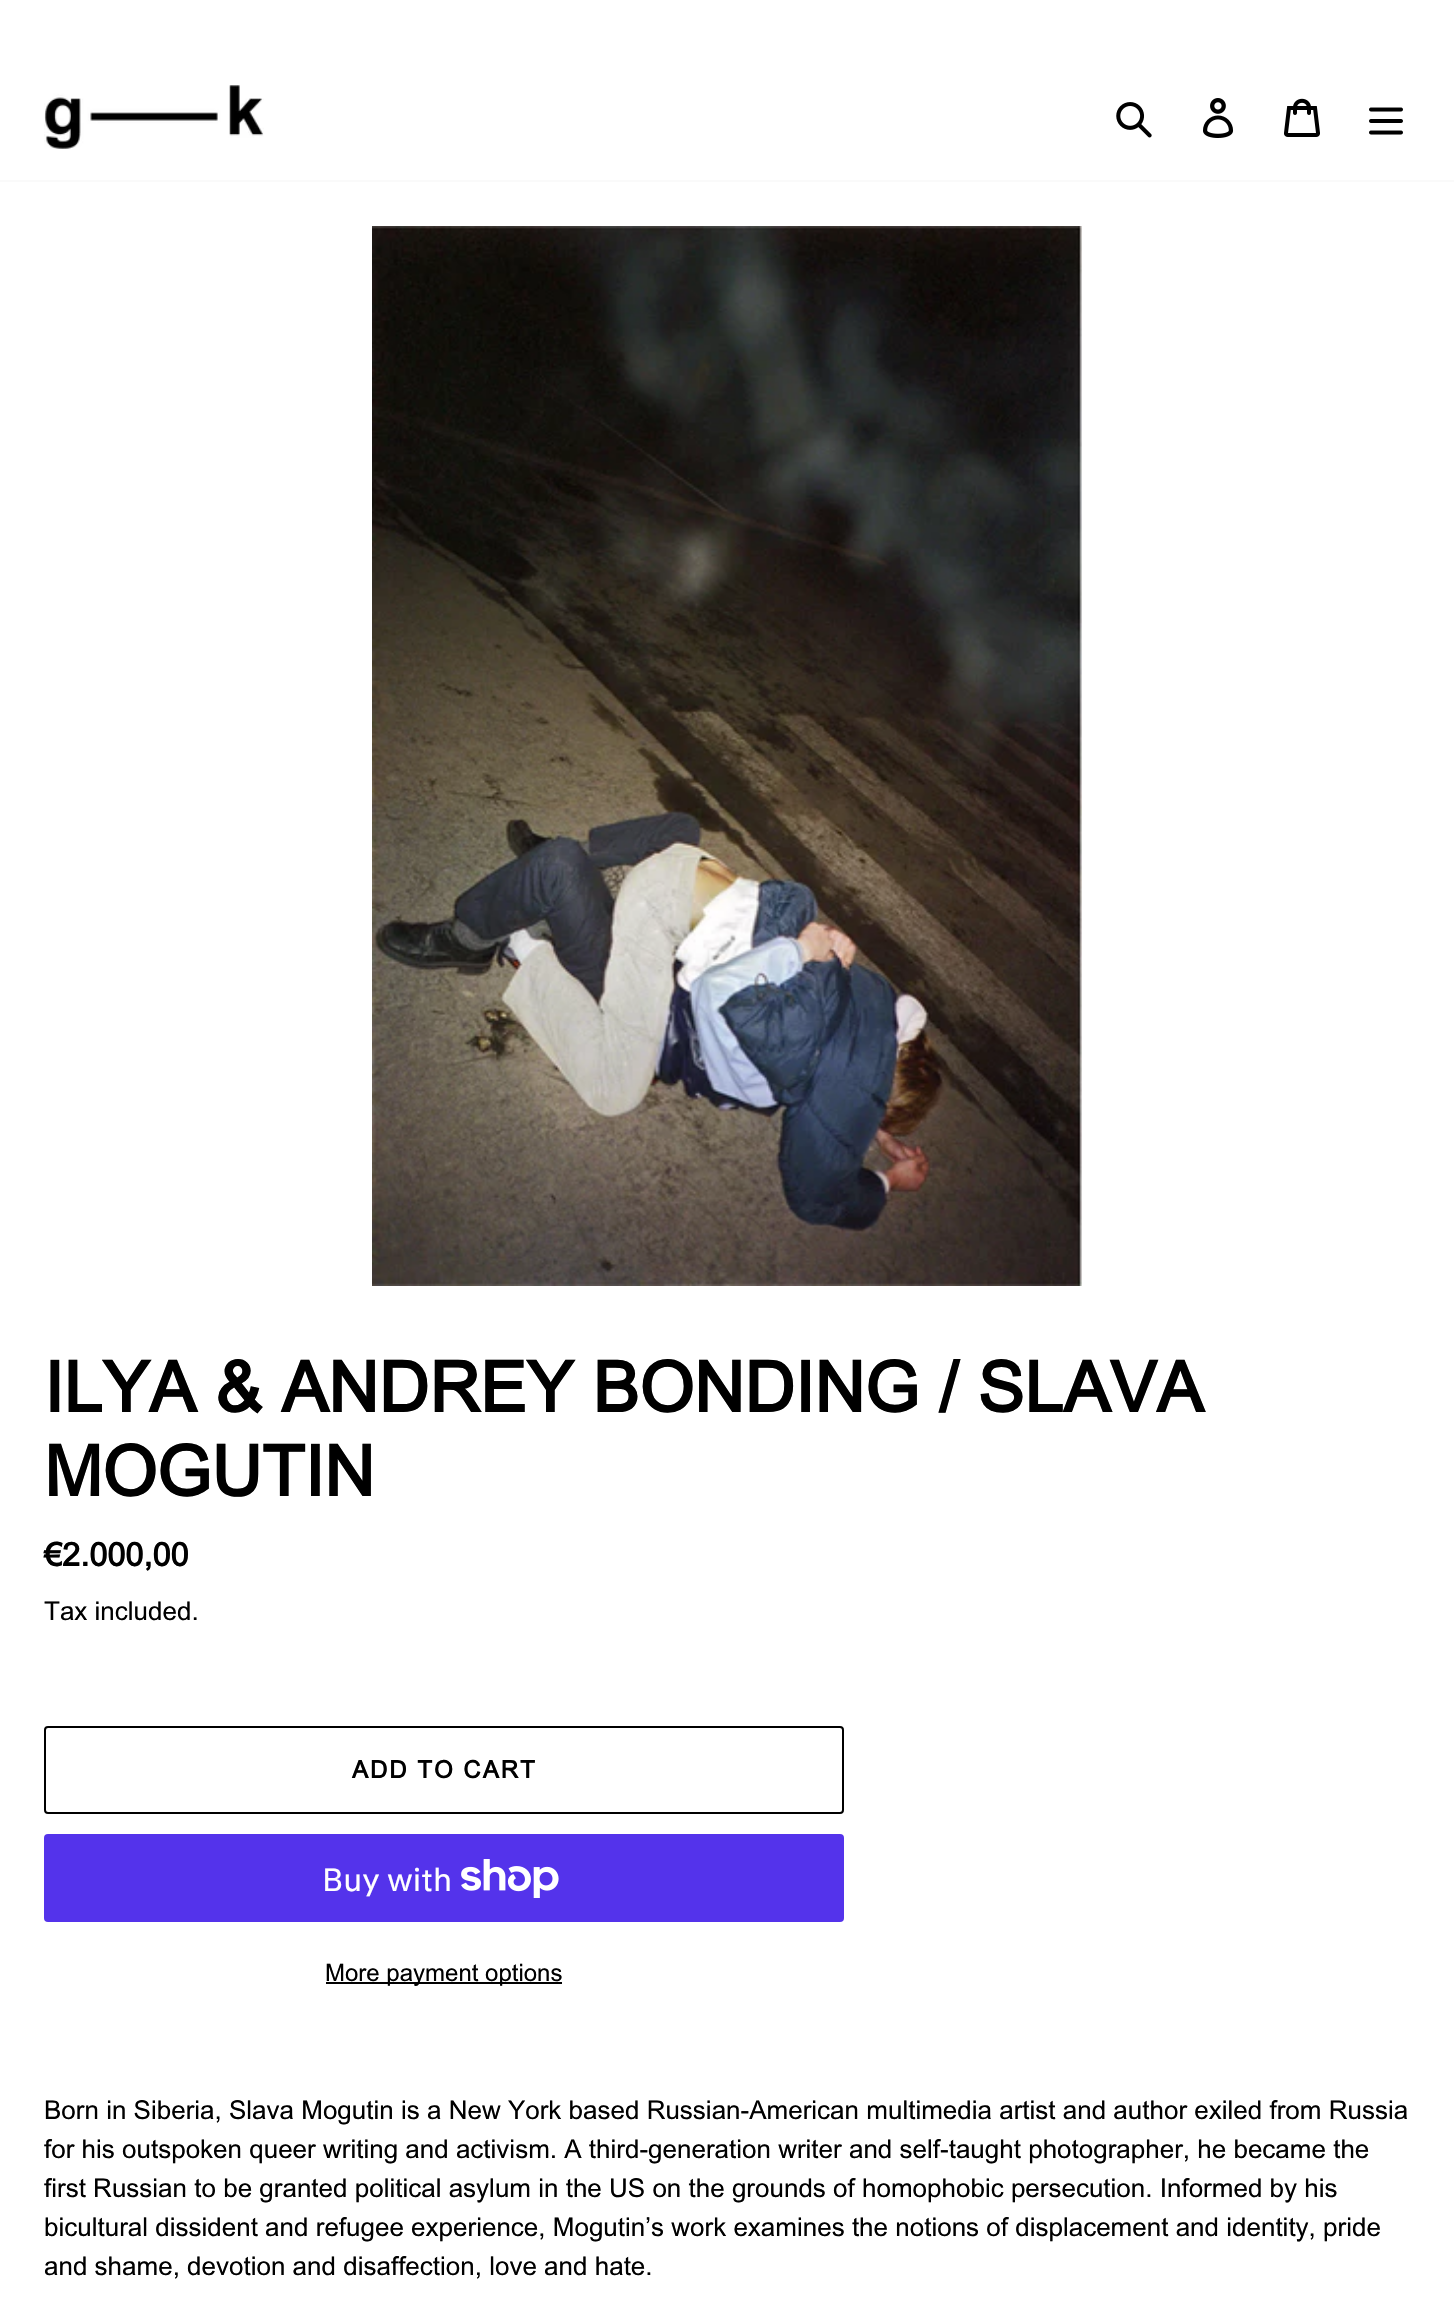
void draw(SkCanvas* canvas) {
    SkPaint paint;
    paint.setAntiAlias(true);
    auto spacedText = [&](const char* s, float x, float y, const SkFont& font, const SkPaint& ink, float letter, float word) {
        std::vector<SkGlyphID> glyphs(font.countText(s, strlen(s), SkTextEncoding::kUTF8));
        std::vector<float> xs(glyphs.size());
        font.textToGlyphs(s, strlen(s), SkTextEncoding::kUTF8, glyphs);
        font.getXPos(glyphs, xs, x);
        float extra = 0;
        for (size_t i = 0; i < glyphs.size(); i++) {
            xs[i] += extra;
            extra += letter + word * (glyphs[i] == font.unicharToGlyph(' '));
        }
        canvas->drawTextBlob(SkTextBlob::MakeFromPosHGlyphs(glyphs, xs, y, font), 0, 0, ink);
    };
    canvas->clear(0xFFFFFFFF);
    paint.setColor(0xFFFAFAFA);
    canvas->drawRect(SkRect::MakeXYWH(0, 180, 1454, 2), paint);
    canvas->drawImageRect(SkImages::DeferredFromEncodedData(SkData::MakeFromFileName("img1.png")), SkRect::MakeXYWH(44, 85, 220, 64), SkSamplingOptions());
    canvas->drawImageRect(SkImages::DeferredFromEncodedData(SkData::MakeFromFileName("img2.png")), SkRect::MakeXYWH(1116, 102, 36, 36), SkSamplingOptions());
    canvas->drawImageRect(SkImages::DeferredFromEncodedData(SkData::MakeFromFileName("img3.png")), SkRect::MakeXYWH(1203, 98, 31, 40), SkSamplingOptions());
    canvas->drawImageRect(SkImages::DeferredFromEncodedData(SkData::MakeFromFileName("img4.png")), SkRect::MakeXYWH(1284, 98, 36, 39), SkSamplingOptions());
    canvas->drawImageRect(SkImages::DeferredFromEncodedData(SkData::MakeFromFileName("img5.png")), SkRect::MakeXYWH(1369, 107, 34, 28), SkSamplingOptions());
    canvas->drawImageRect(SkImages::DeferredFromEncodedData(SkData::MakeFromFileName("img6.png")), SkRect::MakeXYWH(372, 226, 710, 1060), SkSamplingOptions());
    SkFont font1(fontMgr->matchFamilyStyle("Arial", SkFontStyle::Bold()), 70);
    font1.setSubpixel(true);
    paint.setColor(0xFF000000);
    canvas->drawString("ILYA & ANDREY BONDING / SLAVA", 44, 1412, font1, paint);
    canvas->drawString("MOGUTIN", 44, 1496, font1, paint);
    SkFont font2(fontMgr->matchFamilyStyle("Arial", SkFontStyle::Bold()), 32.5f);
    font2.setSubpixel(true);
    canvas->drawString("€2.000,00", 44, 1566, font2, paint);
    SkFont font3(fontMgr->matchFamilyStyle("Arial", SkFontStyle::Normal()), 26);
    font3.setSubpixel(true);
    canvas->drawString("Tax included.", 44, 1620, font3, paint);
    paint.setStyle(SkPaint::kStroke_Style);
    paint.setStrokeWidth(2);
    canvas->drawRoundRect(SkRect::MakeXYWH(45, 1727, 798, 86), 3, 3, paint);
    SkFont font4(fontMgr->matchFamilyStyle("Arial", SkFontStyle::Bold()), 24);
    font4.setSubpixel(true);
    paint.setStyle(SkPaint::kFill_Style);
    spacedText("ADD TO CART", 352, 1778, font4, paint, 2, 0);
    paint.setColor(0xFF5433EB);
    canvas->drawRoundRect(SkRect::MakeXYWH(44, 1834, 800, 88), 4, 4, paint);
    SkFont font5(fontMgr->matchFamilyStyle("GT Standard", SkFontStyle::Normal()), 32);
    font5.setSubpixel(true);
    paint.setColor(0xFFFFFFFF);
    canvas->drawString("Buy with", 322, 1891, font5, paint);
    canvas->drawImageRect(SkImages::DeferredFromEncodedData(SkData::MakeFromFileName("img7.png")), SkRect::MakeXYWH(461, 1859, 98, 39), SkSamplingOptions());
    paint.setColor(0xFF000000);
    canvas->drawRect(SkRect::MakeXYWH(326, 1982, 236, 2), paint);
    SkFont font6(fontMgr->matchFamilyStyle("Arial", SkFontStyle::Normal()), 24);
    font6.setSubpixel(true);
    canvas->drawString("More payment options", 325, 1981, font6, paint);
    canvas->drawString("Born in Siberia, Slava Mogutin is a New York based Russian-American multimedia artist and author exiled from Russia", 44, 2119, font3, paint);
    canvas->drawString("for his outspoken queer writing and activism. A third-generation writer and self-taught photographer, he became the", 44, 2158, font3, paint);
    canvas->drawString("first Russian to be granted political asylum in the US on the grounds of homophobic persecution. Informed by his", 44, 2197, font3, paint);
    canvas->drawString("bicultural dissident and refugee experience, Mogutin’s work examines the notions of displacement and identity, pride", 44, 2236, font3, paint);
    canvas->drawString("and shame, devotion and disaffection, love and hate.", 44, 2275, font3, paint);
}
